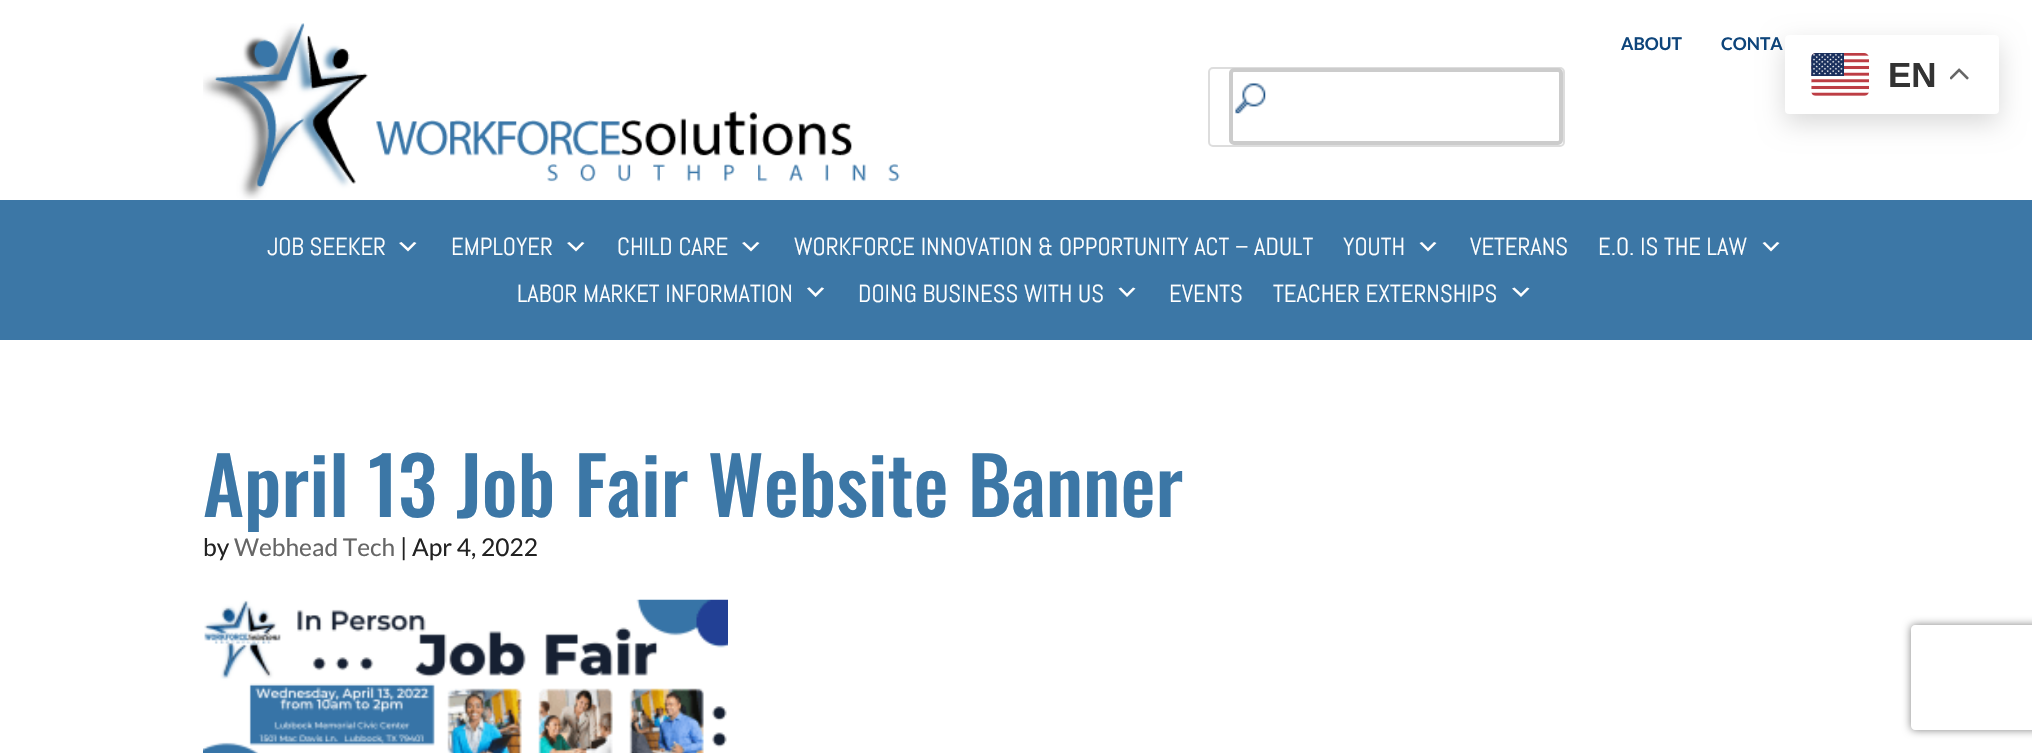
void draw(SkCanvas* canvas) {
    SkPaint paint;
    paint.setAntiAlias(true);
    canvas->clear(0xFFFFFFFF);
    canvas->drawImageRect(SkImages::DeferredFromEncodedData(SkData::MakeFromFileName("img1.png")), SkRect::MakeXYWH(203, 23, 697, 176), SkSamplingOptions());
    SkFont font1(fontMgr->matchFamilyStyle("Lato", SkFontStyle::Bold()), 17.5f);
    font1.setSubpixel(true);
    paint.setColor(0xFF0E457B);
    canvas->drawString("ABOUT", 1621, 50, font1, paint);
    canvas->drawString("CONTA", 1721, 50, font1, paint);
    paint.setStyle(SkPaint::kStroke_Style);
    paint.setStrokeWidth(2);
    paint.setColor(0xFFDDDDDD);
    canvas->drawRoundRect(SkRect::MakeXYWH(1209, 68, 355, 78), 4, 4, paint);
    canvas->drawImageRect(SkImages::DeferredFromEncodedData(SkData::MakeFromFileName("img2.png")), SkRect::MakeXYWH(1235, 83, 31, 31), SkSamplingOptions());
    paint.setStrokeWidth(4);
    paint.setColor(0xFFCCCCCC);
    canvas->drawRoundRect(SkRect::MakeXYWH(1231, 70, 330, 73), 3, 3, paint);
    paint.setStyle(SkPaint::kFill_Style);
    paint.setColor(0xFF3C77A6);
    canvas->drawRect(SkRect::MakeXYWH(0, 200, 2032, 140), paint);
    SkFont font2(fontMgr->matchFamilyStyle("Abel", SkFontStyle::Normal()), 24.6f);
    font2.setSubpixel(true);
    paint.setColor(0xFFFFFFFF);
    canvas->drawString("JOB SEEKER", 267, 255, font2, paint);
    canvas->drawPath(SkPathBuilder().moveTo(401.5f, 242).lineTo(408, 248).lineTo(414, 242).lineTo(416.5f, 243).lineTo(408, 251.5f).lineTo(399, 243).close().detach(), paint);
    canvas->drawString("EMPLOYER", 451, 255, font2, paint);
    canvas->drawPath(SkPathBuilder().moveTo(569.5f, 242).lineTo(576, 248).lineTo(582, 242).lineTo(584.5f, 243).lineTo(576, 251.5f).lineTo(567, 243).close().detach(), paint);
    canvas->drawString("CHILD CARE", 617, 255, font2, paint);
    canvas->drawPath(SkPathBuilder().moveTo(744.5f, 242).lineTo(751, 248).lineTo(757, 242).lineTo(759.5f, 243).lineTo(751, 251.5f).lineTo(742, 243).close().detach(), paint);
    canvas->drawString("WORKFORCE INNOVATION & OPPORTUNITY ACT – ADULT", 794, 255, font2, paint);
    canvas->drawString("YOUTH", 1343, 255, font2, paint);
    canvas->drawPath(SkPathBuilder().moveTo(1422, 242).lineTo(1428, 248).lineTo(1434, 242).lineTo(1436.5f, 243).lineTo(1428, 251.5f).lineTo(1419.5f, 243).close().detach(), paint);
    canvas->drawString("VETERANS", 1470, 255, font2, paint);
    canvas->drawString("E.O. IS THE LAW", 1598, 255, font2, paint);
    canvas->drawPath(SkPathBuilder().moveTo(1765, 242).lineTo(1771, 248).lineTo(1777, 242).lineTo(1779.5f, 243).lineTo(1771, 251.5f).lineTo(1762.5f, 243).close().detach(), paint);
    canvas->drawString("LABOR MARKET INFORMATION", 517, 302, font2, paint);
    canvas->drawImageRect(SkImages::DeferredFromEncodedData(SkData::MakeFromFileName("img3.png")), SkRect::MakeXYWH(807, 287, 18, 10), SkSamplingOptions());
    canvas->drawString("DOING BUSINESS WITH US", 858, 302, font2, paint);
    canvas->drawPath(SkPathBuilder().moveTo(1121, 287.5f).lineTo(1127, 293.5f).lineTo(1133, 287.5f).lineTo(1135.5f, 288.5f).lineTo(1127, 297).lineTo(1118.5f, 288.5f).close().detach(), paint);
    canvas->drawString("EVENTS", 1169, 302, font2, paint);
    canvas->drawString("TEACHER EXTERNSHIPS", 1273, 302, font2, paint);
    canvas->drawPath(SkPathBuilder().moveTo(1514.5f, 287.5f).lineTo(1521, 293.5f).lineTo(1527, 287.5f).lineTo(1529.5f, 288.5f).lineTo(1521, 297).lineTo(1512, 288.5f).close().detach(), paint);
    SkFont font3(fontMgr->matchFamilyStyle("Oswald", SkFontStyle(500, SkFontStyle::kNormal_Width, SkFontStyle::kUpright_Slant)), 78.75f);
    font3.setSubpixel(true);
    paint.setColor(0xFF3C77A6);
    canvas->drawString("April 13 Job Fair Website Banner", 203, 517, font3, paint);
    SkFont font4(fontMgr->matchFamilyStyle("Lato", SkFontStyle::Normal()), 24.5f);
    font4.setSubpixel(true);
    paint.setColor(0xFF222222);
    canvas->drawString("by", 203, 556, font4, paint);
    paint.setColor(0xFF666666);
    canvas->drawString("Webhead Tech", 234, 556, font4, paint);
    paint.setColor(0xFF222222);
    canvas->drawString("| Apr 4, 2022", 400, 556, font4, paint);
    canvas->drawImageRect(SkImages::DeferredFromEncodedData(SkData::MakeFromFileName("img4.png")), SkRect::MakeXYWH(203, 599, 525, 154), SkSamplingOptions());
    paint.setColor(0x26000000);
    paint.setMaskFilter(SkMaskFilter::MakeBlur(kNormal_SkBlurStyle, 13));
    canvas->drawRoundRect(SkRect::MakeXYWH(1785, 44, 214, 79), 4, 4, paint);
    paint.setMaskFilter(nullptr);
    paint.setColor(0xFFFFFFFF);
    canvas->drawRoundRect(SkRect::MakeXYWH(1785, 35, 214, 79), 4, 4, paint);
    canvas->drawImageRect(SkImages::DeferredFromEncodedData(SkData::MakeFromFileName("img5.png")), SkRect::MakeXYWH(1811, 53, 58, 43), SkSamplingOptions());
    SkFont font5(fontMgr->matchFamilyStyle("Liberation Sans", SkFontStyle::Bold()), 35);
    font5.setSubpixel(true);
    paint.setColor(0xFF333333);
    canvas->drawString("EN", 1888, 87, font5, paint);
    canvas->drawImageRect(SkImages::DeferredFromEncodedData(SkData::MakeFromFileName("img6.png")), SkRect::MakeXYWH(1950, 68, 19, 12), SkSamplingOptions());
    canvas->save();
    canvas->clipPath(SkPathBuilder(SkPathFillType::kEvenOdd).moveTo(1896, 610).lineTo(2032, 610).lineTo(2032, 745).lineTo(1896, 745).close().moveTo(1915, 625).lineTo(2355, 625).cubicTo(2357, 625, 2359, 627, 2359, 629).lineTo(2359, 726).cubicTo(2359, 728, 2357, 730, 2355, 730).lineTo(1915, 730).cubicTo(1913, 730, 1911, 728, 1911, 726).lineTo(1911, 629).cubicTo(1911, 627, 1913, 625, 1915, 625).close().detach(), true);
    paint.setColor(0xFF808080);
    paint.setMaskFilter(SkMaskFilter::MakeBlur(kNormal_SkBlurStyle, 4.5f));
    canvas->drawRoundRect(SkRect::MakeXYWH(1911, 625, 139, 105), 4, 4, paint);
    paint.setMaskFilter(nullptr);
    canvas->restore();
}
